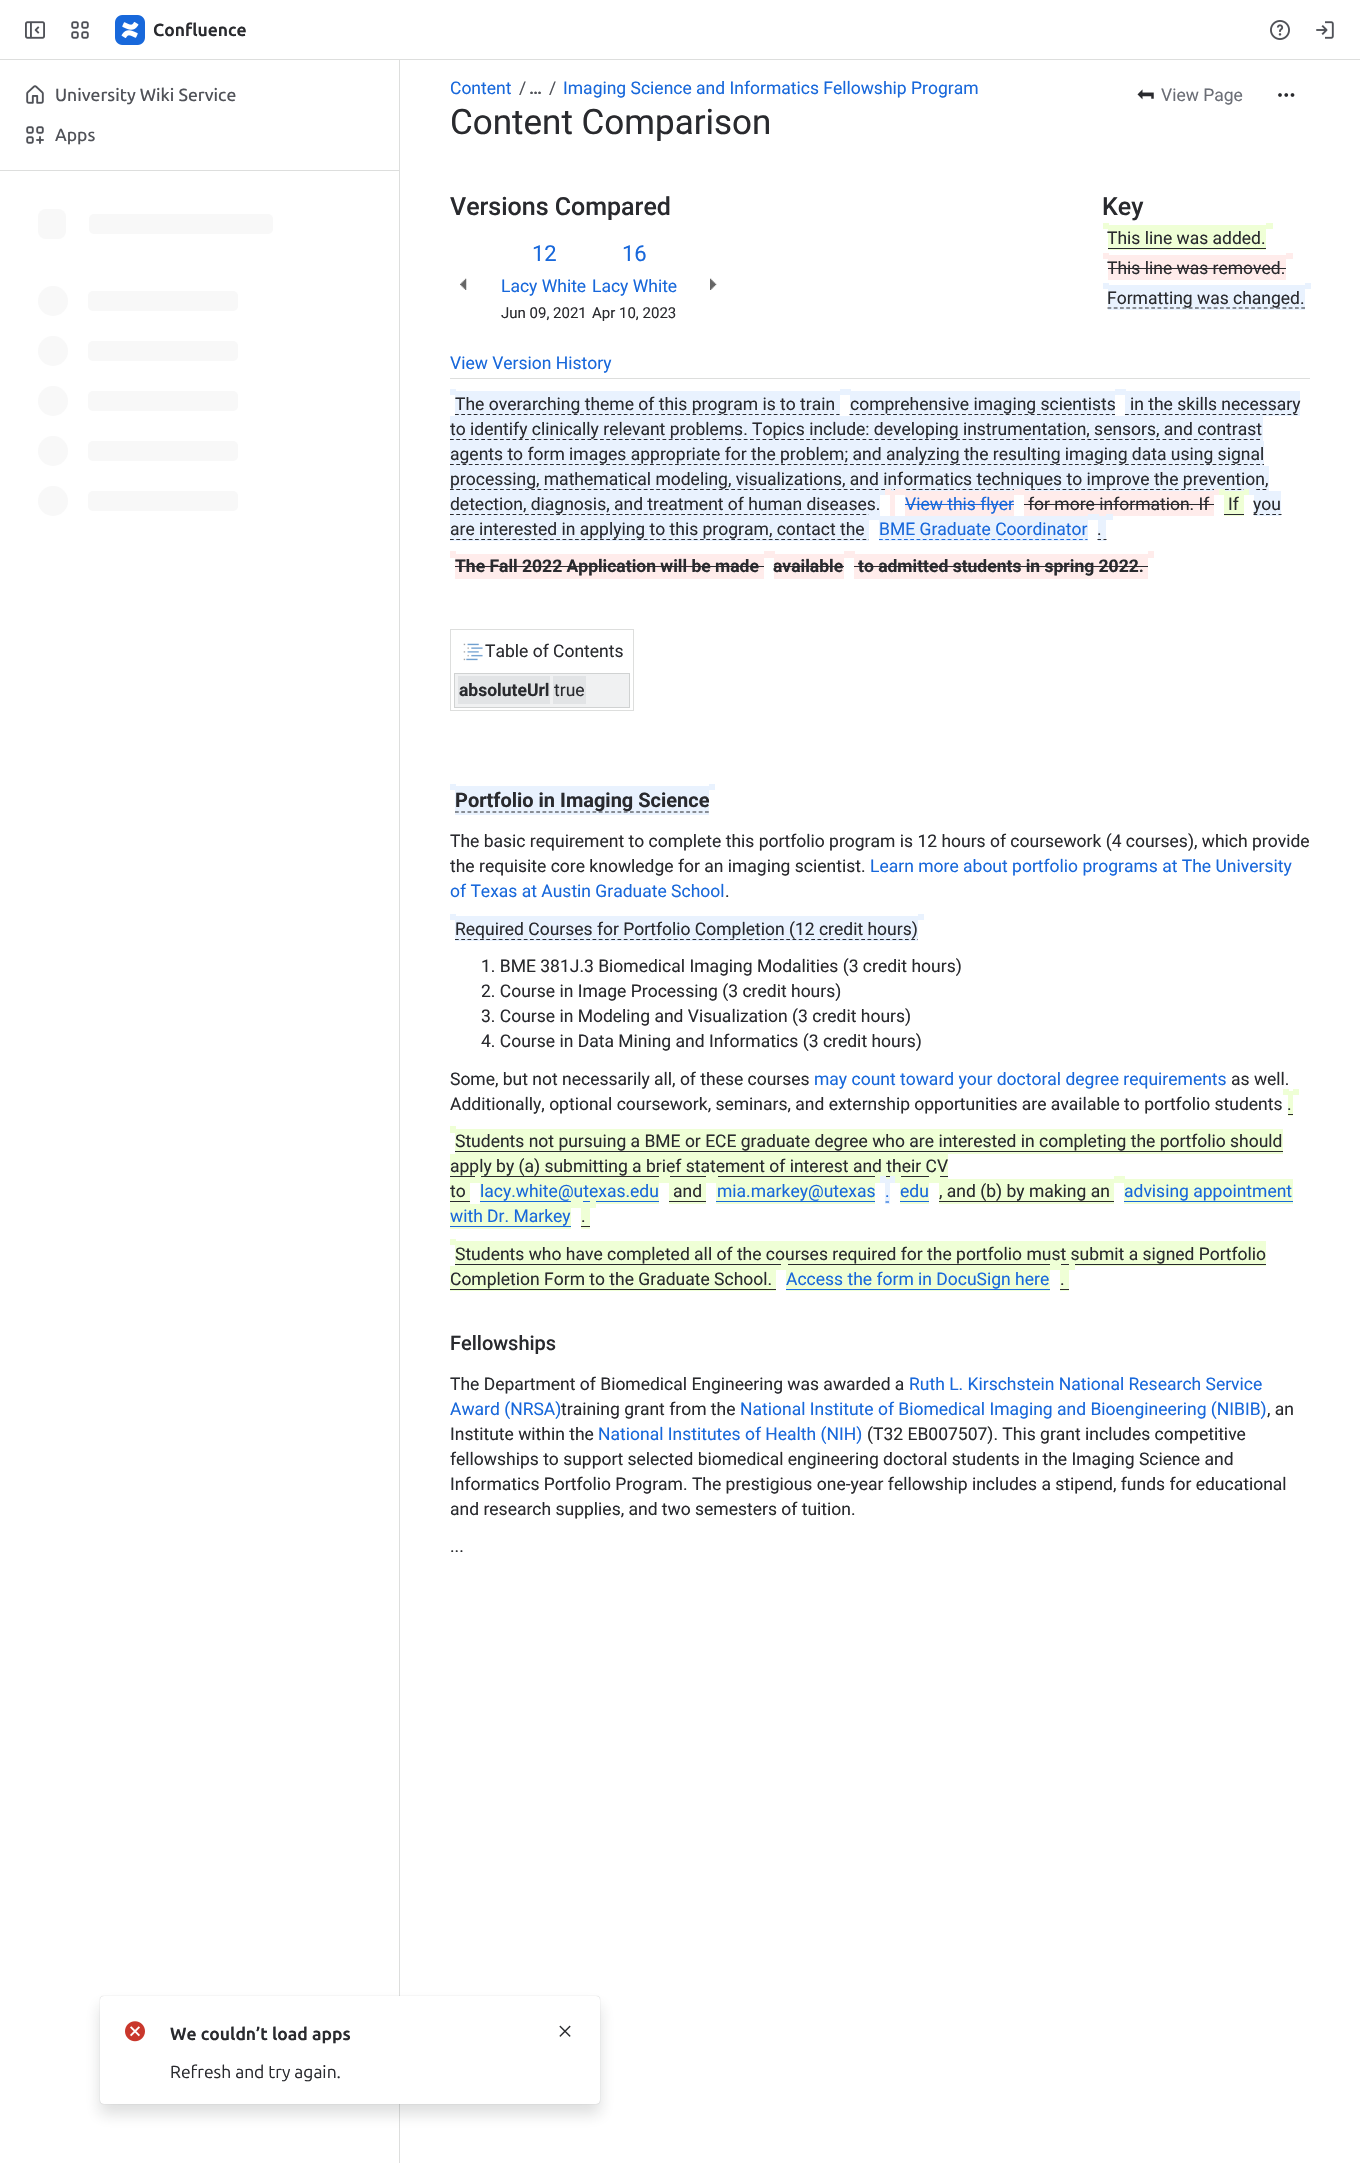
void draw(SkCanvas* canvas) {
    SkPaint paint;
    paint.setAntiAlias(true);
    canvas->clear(0xFFFFFFFF);
    paint.setColor(0xFFDDDEDD);
    canvas->drawRect(SkRect::MakeXYWH(0, 59, 1360, 1), paint);
    canvas->drawImageRect(SkImages::DeferredFromEncodedData(SkData::MakeFromFileName("img1.png")), SkRect::MakeXYWH(25, 21, 20, 18), SkSamplingOptions());
    canvas->drawImageRect(SkImages::DeferredFromEncodedData(SkData::MakeFromFileName("img2.png")), SkRect::MakeXYWH(71, 21, 18, 18), SkSamplingOptions());
    canvas->drawImageRect(SkImages::DeferredFromEncodedData(SkData::MakeFromFileName("img3.png")), SkRect::MakeXYWH(115, 15, 30, 30), SkSamplingOptions());
    SkFont font1(fontMgr->matchFamilyStyle("Ubuntu", SkFontStyle::Bold()), 17.5f);
    font1.setSubpixel(true);
    paint.setColor(0xFF292A2E);
    canvas->drawString("Confluence", 153, 36, font1, paint);
    canvas->drawImageRect(SkImages::DeferredFromEncodedData(SkData::MakeFromFileName("img4.png")), SkRect::MakeXYWH(1270, 20, 20, 20), SkSamplingOptions());
    canvas->drawImageRect(SkImages::DeferredFromEncodedData(SkData::MakeFromFileName("img5.png")), SkRect::MakeXYWH(1316, 21, 18, 18), SkSamplingOptions());
    paint.setColor(0xFFDDDEDD);
    canvas->drawRect(SkRect::MakeXYWH(399, 60, 1, 2103), paint);
    canvas->drawImageRect(SkImages::DeferredFromEncodedData(SkData::MakeFromFileName("img6.png")), SkRect::MakeXYWH(26, 85, 18, 19), SkSamplingOptions());
    SkFont font2(fontMgr->matchFamilyStyle("Ubuntu", SkFontStyle(500, SkFontStyle::kNormal_Width, SkFontStyle::kUpright_Slant)), 17.5f);
    font2.setSubpixel(true);
    paint.setColor(0xFF505258);
    canvas->drawString("University Wiki Service", 55, 101, font2, paint);
    canvas->drawImageRect(SkImages::DeferredFromEncodedData(SkData::MakeFromFileName("img7.png")), SkRect::MakeXYWH(26, 126, 18, 18), SkSamplingOptions());
    canvas->drawString("Apps", 55, 141, font2, paint);
    paint.setColor(0xFFDDDEDD);
    canvas->drawRect(SkRect::MakeXYWH(0, 170, 399, 1), paint);
    paint.setColor(0xFFF8F8F8);
    canvas->drawRoundRect(SkRect::MakeXYWH(38, 209, 28, 30), 8, 8, paint);
    canvas->drawRoundRect(SkRect::MakeXYWH(89, 214, 184, 20), 5, 5, paint);
    canvas->drawCircle(53, 301, 15, paint);
    canvas->drawRoundRect(SkRect::MakeXYWH(88, 291, 150, 20), 5, 5, paint);
    canvas->drawCircle(53, 351, 15, paint);
    canvas->drawRoundRect(SkRect::MakeXYWH(88, 341, 150, 20), 5, 5, paint);
    canvas->drawCircle(53, 401, 15, paint);
    canvas->drawRoundRect(SkRect::MakeXYWH(88, 391, 150, 20), 5, 5, paint);
    canvas->drawCircle(53, 451, 15, paint);
    canvas->drawRoundRect(SkRect::MakeXYWH(88, 441, 150, 20), 5, 5, paint);
    canvas->drawCircle(53, 501, 15, paint);
    canvas->drawRoundRect(SkRect::MakeXYWH(88, 491, 150, 20), 5, 5, paint);
    SkFont font3(fontMgr->matchFamilyStyle("Roboto", SkFontStyle::Normal()), 17.5f);
    font3.setSubpixel(true);
    paint.setColor(0xFF1868DB);
    canvas->drawString("Content", 450, 94, font3, paint);
    paint.setColor(0xFF505258);
    canvas->drawString("/", 519, 94, font3, paint);
    SkFont font4(fontMgr->matchFamilyStyle("Roboto", SkFontStyle::Bold()), 17.5f);
    font4.setSubpixel(true);
    canvas->drawString("…", 529, 94, font4, paint);
    canvas->drawString("/", 549, 94, font3, paint);
    paint.setColor(0xFF1868DB);
    canvas->drawString("Imaging Science and Informatics Fellowship Program", 563, 94, font3, paint);
    SkFont font5(fontMgr->matchFamilyStyle("Roboto", SkFontStyle::Normal()), 35);
    font5.setSubpixel(true);
    paint.setColor(0xFF292A2E);
    canvas->drawString("Content Comparison", 450, 134, font5, paint);
    canvas->drawImageRect(SkImages::DeferredFromEncodedData(SkData::MakeFromFileName("img8.png")), SkRect::MakeXYWH(1137, 89, 17, 11), SkSamplingOptions());
    paint.setColor(0xFF6B6E76);
    canvas->drawString("View Page", 1161, 101, font3, paint);
    canvas->drawImageRect(SkImages::DeferredFromEncodedData(SkData::MakeFromFileName("img9.png")), SkRect::MakeXYWH(1278, 93, 17, 4), SkSamplingOptions());
    paint.setColor(0xFFDDDEDD);
    canvas->drawRect(SkRect::MakeXYWH(450, 378, 860, 1), paint);
    SkFont font6(fontMgr->matchFamilyStyle("Roboto", SkFontStyle(500, SkFontStyle::kNormal_Width, SkFontStyle::kUpright_Slant)), 25);
    font6.setSubpixel(true);
    paint.setColor(0xFF292A2E);
    canvas->drawString("Versions Compared", 450, 215, font6, paint);
    canvas->drawString("Key", 1102, 215, font6, paint);
    paint.setColor(0xFFEFFFD6);
    canvas->drawRect(SkRect::MakeXYWH(1103, 223, 6, 6), paint);
    canvas->drawRect(SkRect::MakeXYWH(1108, 225, 158, 25), paint);
    paint.setColor(0xFF292A2E);
    canvas->drawString("This line was added.", 1107, 244, font3, paint);
    paint.setColor(0xFFEFFFD6);
    canvas->drawRect(SkRect::MakeXYWH(1266, 223, 7, 6), paint);
    paint.setColor(0xFF292A2E);
    canvas->drawRect(SkRect::MakeXYWH(1108, 248, 158, 1), paint);
    paint.setColor(0xFFFFECEB);
    canvas->drawRect(SkRect::MakeXYWH(1103, 253, 6, 6), paint);
    canvas->drawRect(SkRect::MakeXYWH(1108, 255, 178, 25), paint);
    paint.setColor(0xFF292A2E);
    canvas->drawString("This line was removed.", 1107, 274, font3, paint);
    paint.setColor(0xFFFFECEB);
    canvas->drawRect(SkRect::MakeXYWH(1286, 253, 7, 6), paint);
    paint.setColor(0xFF292A2E);
    canvas->drawRect(SkRect::MakeXYWH(1108, 268, 178, 1), paint);
    paint.setColor(0xFFE9F2FE);
    canvas->drawRect(SkRect::MakeXYWH(1103, 283, 6, 6), paint);
    canvas->drawRect(SkRect::MakeXYWH(1108, 285, 197, 25), paint);
    paint.setStyle(SkPaint::kStroke_Style);
    paint.setStrokeWidth(1.2f);
    paint.setColor(0xFF292A2E);
    paint.setPathEffect(SkDashPathEffect::Make({{3.75f, 2.5f}}, 0));
    canvas->drawPath(SkPathBuilder().moveTo(1107.5f, 308).lineTo(1305, 308).detach(), paint);
    paint.setPathEffect(nullptr);
    paint.setStyle(SkPaint::kFill_Style);
    canvas->drawString("Formatting was changed.", 1107, 304, font3, paint);
    paint.setColor(0xFFE9F2FE);
    canvas->drawRect(SkRect::MakeXYWH(1305, 283, 6, 6), paint);
    SkFont font7(fontMgr->matchFamilyStyle("Roboto", SkFontStyle::Normal()), 22);
    font7.setSubpixel(true);
    paint.setColor(0xFF1868DB);
    canvas->drawString("12", 532, 261, font7, paint);
    canvas->drawString("16", 622, 261, font7, paint);
    canvas->drawString("Lacy White", 501, 292, font3, paint);
    canvas->drawString("Lacy White", 592, 292, font3, paint);
    SkFont font8(fontMgr->matchFamilyStyle("Roboto", SkFontStyle::Normal()), 15);
    font8.setSubpixel(true);
    paint.setColor(0xFF292A2E);
    canvas->drawString("Jun 09, 2021", 501, 318, font8, paint);
    canvas->drawString("Apr 10, 2023", 592, 318, font8, paint);
    canvas->drawImageRect(SkImages::DeferredFromEncodedData(SkData::MakeFromFileName("img10.png")), SkRect::MakeXYWH(460, 278, 7, 12), SkSamplingOptions());
    canvas->drawImageRect(SkImages::DeferredFromEncodedData(SkData::MakeFromFileName("img11.png")), SkRect::MakeXYWH(710, 278, 7, 12), SkSamplingOptions());
    paint.setColor(0xFF1868DB);
    canvas->drawString("View Version History", 450, 369, font3, paint);
    paint.setColor(0xFFE9F2FE);
    canvas->drawRect(SkRect::MakeXYWH(450, 389, 6, 6), paint);
    canvas->drawRect(SkRect::MakeXYWH(455, 391, 385, 25), paint);
    paint.setStyle(SkPaint::kStroke_Style);
    paint.setColor(0xFF292A2E);
    paint.setPathEffect(SkDashPathEffect::Make({{3.75f, 2.5f}}, 0));
    canvas->drawPath(SkPathBuilder().moveTo(455, 414.5f).lineTo(839.5f, 414.5f).detach(), paint);
    paint.setPathEffect(nullptr);
    paint.setStyle(SkPaint::kFill_Style);
    canvas->drawString("The overarching theme of this program is to train", 455, 410, font3, paint);
    paint.setColor(0xFFE9F2FE);
    canvas->drawRect(SkRect::MakeXYWH(840, 389, 11, 6), paint);
    canvas->drawRect(SkRect::MakeXYWH(850, 391, 265, 25), paint);
    paint.setStyle(SkPaint::kStroke_Style);
    paint.setColor(0xFF292A2E);
    paint.setPathEffect(SkDashPathEffect::Make({{3.75f, 2.5f}}, 0));
    canvas->drawPath(SkPathBuilder().moveTo(849.5f, 414.5f).lineTo(1115, 414.5f).detach(), paint);
    paint.setPathEffect(nullptr);
    paint.setStyle(SkPaint::kFill_Style);
    canvas->drawString("comprehensive imaging scientists", 850, 410, font3, paint);
    paint.setColor(0xFFE9F2FE);
    canvas->drawRect(SkRect::MakeXYWH(1115, 389, 11, 6), paint);
    canvas->drawRect(SkRect::MakeXYWH(1125, 391, 175, 25), paint);
    paint.setStyle(SkPaint::kStroke_Style);
    paint.setColor(0xFF292A2E);
    paint.setPathEffect(SkDashPathEffect::Make({{3.75f, 2.5f}}, 0));
    canvas->drawPath(SkPathBuilder().moveTo(1125, 414.5f).lineTo(1300, 414.5f).detach(), paint);
    paint.setPathEffect(nullptr);
    paint.setStyle(SkPaint::kFill_Style);
    canvas->drawString("in the skills necessary", 1130, 410, font3, paint);
    paint.setColor(0xFFE9F2FE);
    canvas->drawRect(SkRect::MakeXYWH(450, 416, 813, 25), paint);
    paint.setStyle(SkPaint::kStroke_Style);
    paint.setColor(0xFF292A2E);
    paint.setPathEffect(SkDashPathEffect::Make({{3.75f, 2.5f}}, 0));
    canvas->drawPath(SkPathBuilder().moveTo(450, 439.5f).lineTo(1262, 439.5f).detach(), paint);
    paint.setPathEffect(nullptr);
    paint.setStyle(SkPaint::kFill_Style);
    canvas->drawString("to identify clinically relevant problems. Topics include: developing instrumentation, sensors, and contrast", 450, 435, font3, paint);
    paint.setColor(0xFFE9F2FE);
    canvas->drawRect(SkRect::MakeXYWH(450, 441, 814, 25), paint);
    paint.setStyle(SkPaint::kStroke_Style);
    paint.setColor(0xFF292A2E);
    paint.setPathEffect(SkDashPathEffect::Make({{3.75f, 2.5f}}, 0));
    canvas->drawPath(SkPathBuilder().moveTo(450, 464.5f).lineTo(1264, 464.5f).detach(), paint);
    paint.setPathEffect(nullptr);
    paint.setStyle(SkPaint::kFill_Style);
    canvas->drawString("agents to form images appropriate for the problem; and analyzing the resulting imaging data using signal", 450, 460, font3, paint);
    paint.setColor(0xFFE9F2FE);
    canvas->drawRect(SkRect::MakeXYWH(450, 466, 819, 25), paint);
    paint.setStyle(SkPaint::kStroke_Style);
    paint.setColor(0xFF292A2E);
    paint.setPathEffect(SkDashPathEffect::Make({{3.75f, 2.5f}}, 0));
    canvas->drawPath(SkPathBuilder().moveTo(450, 489.5f).lineTo(1268.5f, 489.5f).detach(), paint);
    paint.setPathEffect(nullptr);
    paint.setStyle(SkPaint::kFill_Style);
    canvas->drawString("processing, mathematical modeling, visualizations, and informatics techniques to improve the prevention,", 450, 485, font3, paint);
    paint.setColor(0xFFE9F2FE);
    canvas->drawRect(SkRect::MakeXYWH(450, 491, 430, 25), paint);
    paint.setStyle(SkPaint::kStroke_Style);
    paint.setColor(0xFF292A2E);
    paint.setPathEffect(SkDashPathEffect::Make({{3.75f, 2.5f}}, 0));
    canvas->drawPath(SkPathBuilder().moveTo(450, 514.5f).lineTo(880.5f, 514.5f).detach(), paint);
    paint.setPathEffect(nullptr);
    paint.setStyle(SkPaint::kFill_Style);
    canvas->drawString("detection, diagnosis, and treatment of human diseases.", 450, 510, font3, paint);
    paint.setColor(0xFFE9F2FE);
    canvas->drawRect(SkRect::MakeXYWH(880, 491, 6, 4), paint);
    paint.setColor(0xFFFFECEB);
    canvas->drawRect(SkRect::MakeXYWH(885, 489, 6, 6), paint);
    canvas->drawRect(SkRect::MakeXYWH(890, 491, 5, 25), paint);
    canvas->drawRect(SkRect::MakeXYWH(895, 489, 11, 6), paint);
    canvas->drawRect(SkRect::MakeXYWH(905, 491, 109, 25), paint);
    paint.setColor(0xFF1868DB);
    canvas->drawString("View this flyer", 905, 510, font3, paint);
    paint.setColor(0xFFFFECEB);
    canvas->drawRect(SkRect::MakeXYWH(1014, 489, 11, 6), paint);
    paint.setColor(0xFF1868DB);
    canvas->drawRect(SkRect::MakeXYWH(905, 504, 109, 1), paint);
    paint.setColor(0xFFFFECEB);
    canvas->drawRect(SkRect::MakeXYWH(1024, 491, 190, 25), paint);
    paint.setColor(0xFF292A2E);
    canvas->drawString("for more information. If", 1028, 510, font3, paint);
    paint.setColor(0xFFFFECEB);
    canvas->drawRect(SkRect::MakeXYWH(1214, 489, 6, 6), paint);
    paint.setColor(0xFF292A2E);
    canvas->drawRect(SkRect::MakeXYWH(1024, 504, 190, 1), paint);
    paint.setColor(0xFFEFFFD6);
    canvas->drawRect(SkRect::MakeXYWH(1219, 489, 6, 6), paint);
    canvas->drawRect(SkRect::MakeXYWH(1224, 491, 20, 25), paint);
    paint.setColor(0xFF292A2E);
    canvas->drawString("If", 1228, 510, font3, paint);
    paint.setColor(0xFFEFFFD6);
    canvas->drawRect(SkRect::MakeXYWH(1244, 489, 6, 6), paint);
    paint.setColor(0xFF292A2E);
    canvas->drawRect(SkRect::MakeXYWH(1224, 514, 20, 1), paint);
    paint.setColor(0xFFE9F2FE);
    canvas->drawRect(SkRect::MakeXYWH(1249, 489, 6, 6), paint);
    canvas->drawRect(SkRect::MakeXYWH(1254, 491, 27, 25), paint);
    paint.setStyle(SkPaint::kStroke_Style);
    paint.setColor(0xFF292A2E);
    paint.setPathEffect(SkDashPathEffect::Make({{3.75f, 2.5f}}, 0));
    canvas->drawPath(SkPathBuilder().moveTo(1253.5f, 514.5f).lineTo(1281.5f, 514.5f).detach(), paint);
    paint.setPathEffect(nullptr);
    paint.setStyle(SkPaint::kFill_Style);
    canvas->drawString("you", 1253, 510, font3, paint);
    paint.setColor(0xFFE9F2FE);
    canvas->drawRect(SkRect::MakeXYWH(450, 516, 419, 25), paint);
    paint.setStyle(SkPaint::kStroke_Style);
    paint.setColor(0xFF292A2E);
    paint.setPathEffect(SkDashPathEffect::Make({{3.75f, 2.5f}}, 0));
    canvas->drawPath(SkPathBuilder().moveTo(450, 539.5f).lineTo(869, 539.5f).detach(), paint);
    paint.setPathEffect(nullptr);
    paint.setStyle(SkPaint::kFill_Style);
    canvas->drawString("are interested in applying to this program, contact the", 450, 535, font3, paint);
    paint.setColor(0xFFE9F2FE);
    canvas->drawRect(SkRect::MakeXYWH(869, 514, 11, 6), paint);
    canvas->drawRect(SkRect::MakeXYWH(879, 516, 209, 25), paint);
    paint.setColor(0xFF1868DB);
    canvas->drawString("BME Graduate Coordinator", 879, 535, font3, paint);
    paint.setColor(0xFFE9F2FE);
    canvas->drawRect(SkRect::MakeXYWH(1088, 514, 11, 6), paint);
    canvas->drawRect(SkRect::MakeXYWH(1098, 516, 8, 25), paint);
    paint.setColor(0xFF292A2E);
    canvas->drawString(".", 1097, 535, font3, paint);
    paint.setStyle(SkPaint::kStroke_Style);
    paint.setColor(0xFF1868DB);
    paint.setPathEffect(SkDashPathEffect::Make({{3.75f, 2.5f}}, 0));
    canvas->drawPath(SkPathBuilder().moveTo(879, 539.5f).lineTo(1087.5f, 539.5f).detach(), paint);
    paint.setPathEffect(nullptr);
    paint.setStyle(SkPaint::kFill_Style);
    paint.setColor(0xFFE9F2FE);
    canvas->drawRect(SkRect::MakeXYWH(1106, 514, 7, 6), paint);
    paint.setStyle(SkPaint::kStroke_Style);
    paint.setColor(0xFF292A2E);
    canvas->drawPath(SkPathBuilder().moveTo(1097.5f, 539.5f).lineTo(1101, 539.5f).moveTo(1103.5f, 539.5f).lineTo(1106.5f, 539.5f).detach(), paint);
    paint.setStyle(SkPaint::kFill_Style);
    paint.setColor(0xFFFFECEB);
    canvas->drawRect(SkRect::MakeXYWH(450, 551, 6, 7), paint);
    canvas->drawRect(SkRect::MakeXYWH(455, 554, 309, 25), paint);
    paint.setColor(0xFF292A2E);
    canvas->drawString("The Fall 2022 Application will be made", 455, 572, font4, paint);
    canvas->drawRect(SkRect::MakeXYWH(455, 566, 309, 1), paint);
    paint.setColor(0xFFFFECEB);
    canvas->drawRect(SkRect::MakeXYWH(764, 551, 11, 7), paint);
    canvas->drawRect(SkRect::MakeXYWH(774, 554, 70, 25), paint);
    paint.setColor(0xFF292A2E);
    canvas->drawString("available", 773, 572, font4, paint);
    paint.setColor(0xFFFFECEB);
    canvas->drawRect(SkRect::MakeXYWH(844, 551, 11, 7), paint);
    paint.setColor(0xFF292A2E);
    canvas->drawRect(SkRect::MakeXYWH(774, 566, 70, 1), paint);
    paint.setColor(0xFFFFECEB);
    canvas->drawRect(SkRect::MakeXYWH(854, 554, 294, 25), paint);
    paint.setColor(0xFF292A2E);
    canvas->drawString("to admitted students in spring 2022.", 858, 572, font4, paint);
    paint.setColor(0xFFFFECEB);
    canvas->drawRect(SkRect::MakeXYWH(1148, 551, 6, 7), paint);
    paint.setColor(0xFF292A2E);
    canvas->drawRect(SkRect::MakeXYWH(854, 566, 294, 1), paint);
    paint.setStyle(SkPaint::kStroke_Style);
    paint.setStrokeWidth(1);
    paint.setColor(0xFFDDDEDD);
    canvas->drawRect(SkRect::MakeXYWH(450.5f, 629.5f, 183, 81), paint);
    canvas->drawImageRect(SkImages::DeferredFromEncodedData(SkData::MakeFromFileName("img12.png")), SkRect::MakeXYWH(463, 643, 20, 18), SkSamplingOptions());
    paint.setStyle(SkPaint::kFill_Style);
    paint.setColor(0xFF292A2E);
    canvas->drawString("Table of Contents", 485, 657, font3, paint);
    paint.setColor(0xFFF0F1F2);
    canvas->drawRect(SkRect::MakeXYWH(454.5f, 673.5f, 175, 34), paint);
    paint.setStyle(SkPaint::kStroke_Style);
    paint.setColor(0xFFD0D2D2);
    canvas->drawRect(SkRect::MakeXYWH(454.5f, 673.5f, 175, 34), paint);
    paint.setStyle(SkPaint::kFill_Style);
    paint.setColor(0xFFE2E4E6);
    canvas->drawRect(SkRect::MakeXYWH(458, 676, 92, 28), paint);
    paint.setColor(0xFF292A2E);
    canvas->drawString("absoluteUrl", 459, 696, font4, paint);
    paint.setColor(0xFFE2E4E6);
    canvas->drawRect(SkRect::MakeXYWH(553, 676, 33, 28), paint);
    paint.setColor(0xFF292A2E);
    canvas->drawString("true", 554, 696, font3, paint);
    paint.setColor(0xFFE9F2FE);
    canvas->drawRect(SkRect::MakeXYWH(450, 784, 6, 6), paint);
    canvas->drawRect(SkRect::MakeXYWH(455, 786, 254, 29), paint);
    paint.setStyle(SkPaint::kStroke_Style);
    paint.setStrokeWidth(1.2f);
    paint.setColor(0xFF292A2E);
    paint.setPathEffect(SkDashPathEffect::Make({{3.75f, 2.5f}}, 0));
    canvas->drawPath(SkPathBuilder().moveTo(455, 812).lineTo(709, 812).detach(), paint);
    paint.setPathEffect(nullptr);
    SkFont font9(fontMgr->matchFamilyStyle("Roboto", SkFontStyle::Bold()), 20);
    font9.setSubpixel(true);
    paint.setStyle(SkPaint::kFill_Style);
    canvas->drawString("Portfolio in Imaging Science", 455, 807, font9, paint);
    paint.setColor(0xFFE9F2FE);
    canvas->drawRect(SkRect::MakeXYWH(709, 784, 6, 6), paint);
    paint.setColor(0xFF292A2E);
    canvas->drawString("The basic requirement to complete this portfolio program is 12 hours of coursework (4 courses), which provide", 450, 847, font3, paint);
    canvas->drawString("the requisite core knowledge for an imaging scientist.", 450, 872, font3, paint);
    paint.setColor(0xFF1868DB);
    canvas->drawString("Learn more about portfolio programs at The University", 870, 872, font3, paint);
    canvas->drawString("of Texas at Austin Graduate School", 450, 897, font3, paint);
    paint.setColor(0xFF292A2E);
    canvas->drawString(".", 725, 897, font3, paint);
    paint.setColor(0xFFE9F2FE);
    canvas->drawRect(SkRect::MakeXYWH(450, 914, 6, 6), paint);
    canvas->drawRect(SkRect::MakeXYWH(455, 916, 463, 25), paint);
    paint.setStyle(SkPaint::kStroke_Style);
    paint.setColor(0xFF292A2E);
    paint.setPathEffect(SkDashPathEffect::Make({{3.75f, 2.5f}}, 0));
    canvas->drawPath(SkPathBuilder().moveTo(455, 939.5f).lineTo(918, 939.5f).detach(), paint);
    paint.setPathEffect(nullptr);
    paint.setStyle(SkPaint::kFill_Style);
    canvas->drawString("Required Courses for Portfolio Completion (12 credit hours)", 455, 935, font3, paint);
    paint.setColor(0xFFE9F2FE);
    canvas->drawRect(SkRect::MakeXYWH(918, 914, 6, 6), paint);
    paint.setColor(0xFF292A2E);
    canvas->drawString("1. BME 381J.3 Biomedical Imaging Modalities (3 credit hours)", 481, 972, font3, paint);
    canvas->drawString("2. Course in Image Processing (3 credit hours)", 481, 997, font3, paint);
    canvas->drawString("3. Course in Modeling and Visualization (3 credit hours)", 481, 1022, font3, paint);
    canvas->drawString("4. Course in Data Mining and Informatics (3 credit hours)", 481, 1047, font3, paint);
    canvas->drawString("Some, but not necessarily all, of these courses", 450, 1085, font3, paint);
    paint.setColor(0xFF1868DB);
    canvas->drawString("may count toward your doctoral degree requirements", 814, 1085, font3, paint);
    paint.setColor(0xFF292A2E);
    canvas->drawString("as well.", 1231, 1085, font3, paint);
    canvas->drawString("Additionally, optional coursework, seminars, and externship opportunities are available to portfolio students", 450, 1110, font3, paint);
    paint.setColor(0xFFEFFFD6);
    canvas->drawRect(SkRect::MakeXYWH(1283, 1089, 6, 6), paint);
    canvas->drawRect(SkRect::MakeXYWH(1288, 1091, 5, 25), paint);
    paint.setColor(0xFF292A2E);
    canvas->drawString(".", 1287, 1110, font3, paint);
    paint.setColor(0xFFEFFFD6);
    canvas->drawRect(SkRect::MakeXYWH(1293, 1089, 6, 6), paint);
    paint.setColor(0xFF292A2E);
    canvas->drawRect(SkRect::MakeXYWH(1288, 1114, 5, 1), paint);
    paint.setColor(0xFFEFFFD6);
    canvas->drawRect(SkRect::MakeXYWH(450, 1126, 6, 7), paint);
    canvas->drawRect(SkRect::MakeXYWH(455, 1129, 828, 25), paint);
    paint.setColor(0xFF292A2E);
    canvas->drawString("Students not pursuing a BME or ECE graduate degree who are interested in completing the portfolio should", 455, 1147, font3, paint);
    canvas->drawRect(SkRect::MakeXYWH(455, 1151, 828, 1), paint);
    paint.setColor(0xFFEFFFD6);
    canvas->drawRect(SkRect::MakeXYWH(450, 1154, 498, 25), paint);
    paint.setColor(0xFF292A2E);
    canvas->drawString("apply by (a) submitting a brief statement of interest and their CV", 450, 1172, font3, paint);
    paint.setColor(0xFFEFFFD6);
    canvas->drawRect(SkRect::MakeXYWH(470, 1176, 5, 7), paint);
    paint.setColor(0xFF292A2E);
    canvas->drawRect(SkRect::MakeXYWH(450, 1176, 498, 1), paint);
    paint.setColor(0xFFEFFFD6);
    canvas->drawRect(SkRect::MakeXYWH(450, 1179, 20, 25), paint);
    paint.setColor(0xFF292A2E);
    canvas->drawString("to", 450, 1197, font3, paint);
    canvas->drawRect(SkRect::MakeXYWH(450, 1201, 20, 1), paint);
    paint.setColor(0xFFEFFFD6);
    canvas->drawRect(SkRect::MakeXYWH(475, 1176, 6, 7), paint);
    canvas->drawRect(SkRect::MakeXYWH(480, 1179, 179, 25), paint);
    paint.setColor(0xFF1868DB);
    canvas->drawString("lacy.white@utexas.edu", 480, 1197, font3, paint);
    paint.setColor(0xFFEFFFD6);
    canvas->drawRect(SkRect::MakeXYWH(659, 1176, 11, 7), paint);
    paint.setColor(0xFF1868DB);
    canvas->drawRect(SkRect::MakeXYWH(480, 1201, 179, 1), paint);
    paint.setColor(0xFFEFFFD6);
    canvas->drawRect(SkRect::MakeXYWH(669, 1179, 37, 25), paint);
    paint.setColor(0xFF292A2E);
    canvas->drawString("and", 673, 1197, font3, paint);
    paint.setColor(0xFFEFFFD6);
    canvas->drawRect(SkRect::MakeXYWH(706, 1176, 12, 7), paint);
    paint.setColor(0xFF292A2E);
    canvas->drawRect(SkRect::MakeXYWH(669, 1201, 37, 1), paint);
    paint.setColor(0xFFEFFFD6);
    canvas->drawRect(SkRect::MakeXYWH(716, 1179, 159, 25), paint);
    paint.setColor(0xFF1868DB);
    canvas->drawString("mia.markey@utexas", 717, 1197, font3, paint);
    paint.setColor(0xFFEFFFD6);
    canvas->drawRect(SkRect::MakeXYWH(875, 1176, 5, 7), paint);
    paint.setColor(0xFF1868DB);
    canvas->drawRect(SkRect::MakeXYWH(716, 1201, 159, 1), paint);
    paint.setColor(0xFFE9F2FE);
    canvas->drawRect(SkRect::MakeXYWH(880, 1176, 6, 7), paint);
    canvas->drawRect(SkRect::MakeXYWH(885, 1179, 5, 25), paint);
    paint.setColor(0xFF1868DB);
    canvas->drawString(".", 885, 1197, font3, paint);
    paint.setStyle(SkPaint::kStroke_Style);
    canvas->drawPath(SkPathBuilder().moveTo(885.5f, 1202).lineTo(889, 1202).detach(), paint);
    paint.setStyle(SkPaint::kFill_Style);
    paint.setColor(0xFFEFFFD6);
    canvas->drawRect(SkRect::MakeXYWH(895, 1176, 6, 7), paint);
    canvas->drawRect(SkRect::MakeXYWH(900, 1179, 29, 25), paint);
    paint.setColor(0xFF1868DB);
    canvas->drawRect(SkRect::MakeXYWH(900, 1201, 29, 1), paint);
    canvas->drawString("edu", 900, 1197, font3, paint);
    paint.setColor(0xFFE9F2FE);
    canvas->drawRect(SkRect::MakeXYWH(890, 1176, 5, 7), paint);
    paint.setColor(0xFFEFFFD6);
    canvas->drawRect(SkRect::MakeXYWH(929, 1176, 11, 7), paint);
    canvas->drawRect(SkRect::MakeXYWH(939, 1179, 175, 25), paint);
    paint.setColor(0xFF292A2E);
    canvas->drawString(", and (b) by making an", 939, 1197, font3, paint);
    paint.setColor(0xFFEFFFD6);
    canvas->drawRect(SkRect::MakeXYWH(1114, 1176, 11, 7), paint);
    paint.setColor(0xFF292A2E);
    canvas->drawRect(SkRect::MakeXYWH(939, 1201, 175, 1), paint);
    paint.setColor(0xFFEFFFD6);
    canvas->drawRect(SkRect::MakeXYWH(1124, 1179, 169, 25), paint);
    paint.setColor(0xFF1868DB);
    canvas->drawString("advising appointment", 1124, 1197, font3, paint);
    canvas->drawRect(SkRect::MakeXYWH(1124, 1201, 169, 1), paint);
    paint.setColor(0xFFEFFFD6);
    canvas->drawRect(SkRect::MakeXYWH(450, 1204, 121, 25), paint);
    paint.setColor(0xFF1868DB);
    canvas->drawString("with Dr. Markey", 450, 1222, font3, paint);
    paint.setColor(0xFFEFFFD6);
    canvas->drawRect(SkRect::MakeXYWH(571, 1201, 12, 7), paint);
    paint.setColor(0xFF1868DB);
    canvas->drawRect(SkRect::MakeXYWH(450, 1226, 121, 1), paint);
    paint.setColor(0xFFEFFFD6);
    canvas->drawRect(SkRect::MakeXYWH(581, 1204, 9, 25), paint);
    paint.setColor(0xFF292A2E);
    canvas->drawString(".", 581, 1222, font3, paint);
    paint.setColor(0xFFEFFFD6);
    canvas->drawRect(SkRect::MakeXYWH(590, 1201, 6, 7), paint);
    paint.setColor(0xFF292A2E);
    canvas->drawRect(SkRect::MakeXYWH(581, 1226, 9, 1), paint);
    paint.setColor(0xFFEFFFD6);
    canvas->drawRect(SkRect::MakeXYWH(450, 1239, 6, 6), paint);
    canvas->drawRect(SkRect::MakeXYWH(455, 1241, 811, 25), paint);
    paint.setColor(0xFF292A2E);
    canvas->drawString("Students who have completed all of the courses required for the portfolio must submit a signed Portfolio", 455, 1260, font3, paint);
    paint.setColor(0xFFEFFFD6);
    canvas->drawRect(SkRect::MakeXYWH(776, 1266, 7, 4), paint);
    paint.setColor(0xFF292A2E);
    canvas->drawRect(SkRect::MakeXYWH(455, 1264, 811, 1), paint);
    paint.setColor(0xFFEFFFD6);
    canvas->drawRect(SkRect::MakeXYWH(450, 1266, 326, 25), paint);
    paint.setColor(0xFF292A2E);
    canvas->drawString("Completion Form to the Graduate School.", 450, 1285, font3, paint);
    canvas->drawRect(SkRect::MakeXYWH(450, 1289, 326, 1), paint);
    paint.setColor(0xFFEFFFD6);
    canvas->drawRect(SkRect::MakeXYWH(781, 1264, 7, 6), paint);
    canvas->drawRect(SkRect::MakeXYWH(786, 1266, 264, 25), paint);
    paint.setColor(0xFF1868DB);
    canvas->drawString("Access the form in DocuSign here", 786, 1285, font3, paint);
    paint.setColor(0xFFEFFFD6);
    canvas->drawRect(SkRect::MakeXYWH(1050, 1264, 11, 6), paint);
    paint.setColor(0xFF1868DB);
    canvas->drawRect(SkRect::MakeXYWH(786, 1289, 264, 1), paint);
    paint.setColor(0xFFEFFFD6);
    canvas->drawRect(SkRect::MakeXYWH(1060, 1266, 9, 25), paint);
    paint.setColor(0xFF292A2E);
    canvas->drawString(".", 1060, 1285, font3, paint);
    paint.setColor(0xFFEFFFD6);
    canvas->drawRect(SkRect::MakeXYWH(1069, 1264, 6, 6), paint);
    paint.setColor(0xFF292A2E);
    canvas->drawRect(SkRect::MakeXYWH(1060, 1289, 9, 1), paint);
    SkFont font10(fontMgr->matchFamilyStyle("Roboto", SkFontStyle(500, SkFontStyle::kNormal_Width, SkFontStyle::kUpright_Slant)), 20);
    font10.setSubpixel(true);
    canvas->drawString("Fellowships", 450, 1350, font10, paint);
    canvas->drawString("The Department of Biomedical Engineering was awarded a", 450, 1390, font3, paint);
    paint.setColor(0xFF1868DB);
    canvas->drawString("Ruth L. Kirschstein National Research Service", 909, 1390, font3, paint);
    canvas->drawString("Award (NRSA)", 450, 1415, font3, paint);
    paint.setColor(0xFF292A2E);
    canvas->drawString("training grant from the", 561, 1415, font3, paint);
    paint.setColor(0xFF1868DB);
    canvas->drawString("National Institute of Biomedical Imaging and Bioengineering (NIBIB)", 740, 1415, font3, paint);
    paint.setColor(0xFF292A2E);
    canvas->drawString(", an", 1267, 1415, font3, paint);
    canvas->drawString("Institute within the", 450, 1440, font3, paint);
    paint.setColor(0xFF1868DB);
    canvas->drawString("National Institutes of Health (NIH)", 598, 1440, font3, paint);
    paint.setColor(0xFF292A2E);
    canvas->drawString("(T32 EB007507). This grant includes competitive", 867, 1440, font3, paint);
    canvas->drawString("fellowships to support selected biomedical engineering doctoral students in the Imaging Science and", 450, 1465, font3, paint);
    canvas->drawString("Informatics Portfolio Program. The prestigious one-year fellowship includes a stipend, funds for educational", 450, 1490, font3, paint);
    canvas->drawString("and research supplies, and two semesters of tuition.", 450, 1515, font3, paint);
    canvas->drawString("...", 450, 1552, font3, paint);
    paint.setColor(0x4F1E1F21);
    paint.setMaskFilter(SkMaskFilter::MakeBlur(kNormal_SkBlurStyle, 0.5f));
    canvas->drawRoundRect(SkRect::MakeXYWH(100, 1996, 500, 108), 4, 4, paint);
    paint.setMaskFilter(nullptr);
    paint.setColor(0x261E1F21);
    paint.setMaskFilter(SkMaskFilter::MakeBlur(kNormal_SkBlurStyle, 7.5f));
    canvas->drawRoundRect(SkRect::MakeXYWH(100, 2006, 500, 108), 4, 4, paint);
    paint.setMaskFilter(nullptr);
    paint.setColor(0xFFFFFFFF);
    canvas->drawRoundRect(SkRect::MakeXYWH(100, 1996, 500, 108), 4, 4, paint);
    canvas->drawImageRect(SkImages::DeferredFromEncodedData(SkData::MakeFromFileName("img13.png")), SkRect::MakeXYWH(125, 2021, 20, 21), SkSamplingOptions());
    paint.setColor(0xFF292A2E);
    canvas->drawString("We couldn’t load apps", 170, 2040, font1, paint);
    canvas->drawImageRect(SkImages::DeferredFromEncodedData(SkData::MakeFromFileName("img14.png")), SkRect::MakeXYWH(559, 2025, 12, 12), SkSamplingOptions());
    SkFont font11(fontMgr->matchFamilyStyle("Ubuntu", SkFontStyle::Normal()), 17.5f);
    font11.setSubpixel(true);
    canvas->drawString("Refresh and try again.", 170, 2078, font11, paint);
}
